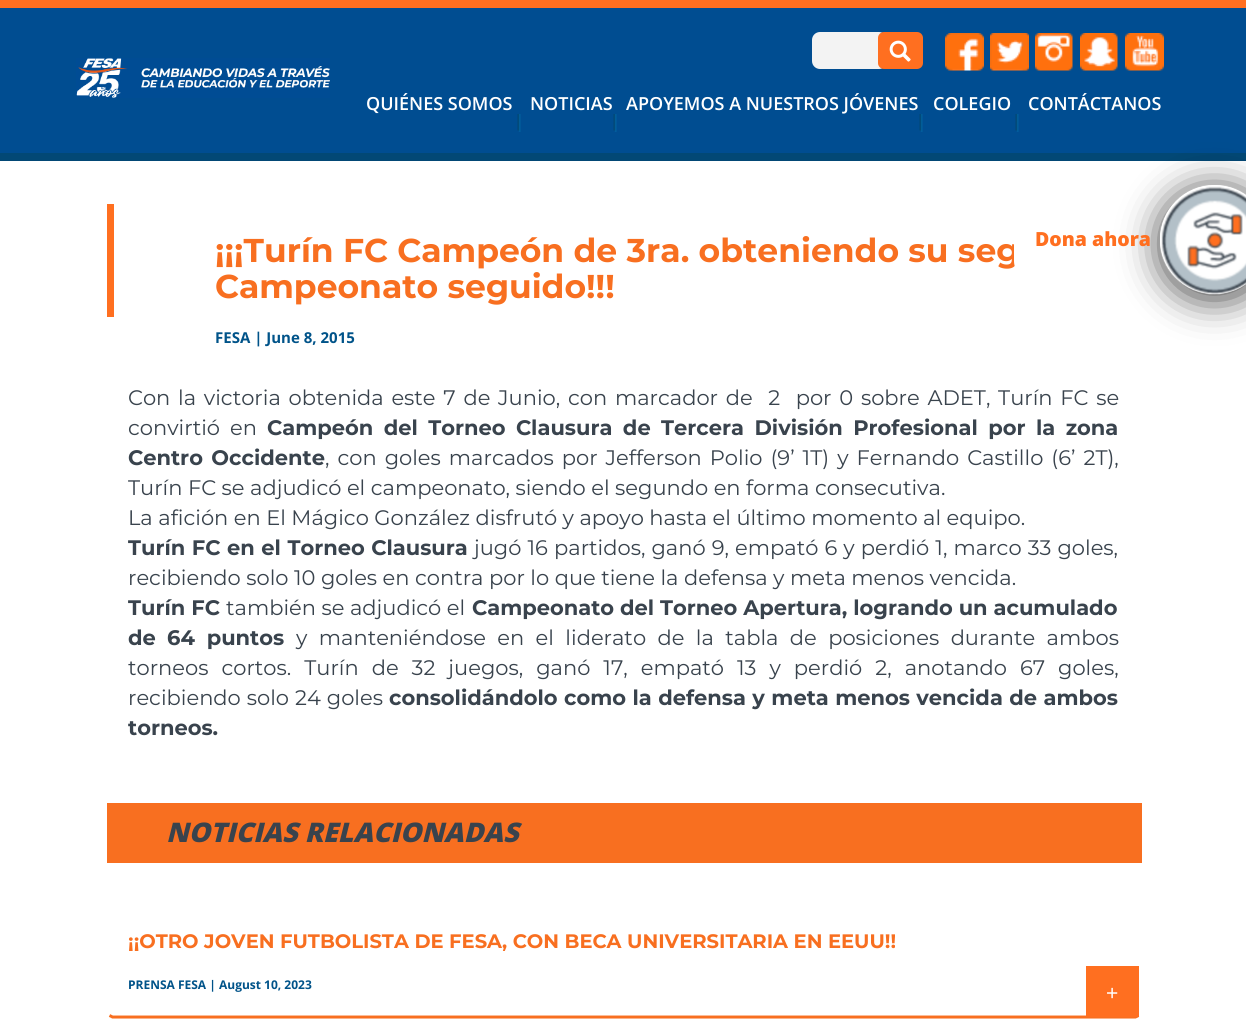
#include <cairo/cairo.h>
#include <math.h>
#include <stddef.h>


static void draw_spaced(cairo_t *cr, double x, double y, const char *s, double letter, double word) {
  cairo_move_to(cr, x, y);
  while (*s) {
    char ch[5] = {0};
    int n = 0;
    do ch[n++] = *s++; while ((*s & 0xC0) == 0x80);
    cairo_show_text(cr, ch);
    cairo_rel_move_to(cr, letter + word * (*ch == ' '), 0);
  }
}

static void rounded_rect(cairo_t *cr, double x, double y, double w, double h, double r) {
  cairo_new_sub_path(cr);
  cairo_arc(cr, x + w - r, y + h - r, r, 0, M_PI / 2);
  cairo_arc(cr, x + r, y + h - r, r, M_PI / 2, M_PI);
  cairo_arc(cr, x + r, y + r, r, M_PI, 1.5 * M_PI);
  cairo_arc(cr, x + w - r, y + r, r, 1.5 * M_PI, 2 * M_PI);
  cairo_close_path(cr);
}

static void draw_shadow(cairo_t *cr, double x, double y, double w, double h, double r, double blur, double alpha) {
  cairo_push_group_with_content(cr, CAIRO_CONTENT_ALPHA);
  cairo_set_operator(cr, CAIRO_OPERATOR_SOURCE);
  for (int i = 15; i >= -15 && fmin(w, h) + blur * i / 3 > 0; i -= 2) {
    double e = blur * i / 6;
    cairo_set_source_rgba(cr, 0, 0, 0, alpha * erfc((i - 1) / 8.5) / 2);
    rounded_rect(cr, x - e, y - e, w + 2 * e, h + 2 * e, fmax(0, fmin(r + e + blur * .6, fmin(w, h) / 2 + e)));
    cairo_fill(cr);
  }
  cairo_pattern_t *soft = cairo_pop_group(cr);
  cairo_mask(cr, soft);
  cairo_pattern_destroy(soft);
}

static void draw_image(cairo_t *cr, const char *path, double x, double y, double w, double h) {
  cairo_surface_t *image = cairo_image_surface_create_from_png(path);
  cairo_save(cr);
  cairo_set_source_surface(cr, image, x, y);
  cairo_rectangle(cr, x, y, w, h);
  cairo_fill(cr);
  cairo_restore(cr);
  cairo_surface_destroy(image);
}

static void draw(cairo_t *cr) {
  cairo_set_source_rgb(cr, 1, 1, 1);
  cairo_paint(cr);
  cairo_set_source_rgb(cr, 0, 77 / 255.0, 145 / 255.0);
  cairo_rectangle(cr, 0, 8, 1246, 145);
  cairo_fill(cr);
  cairo_set_source_rgb(cr, 1, 111 / 255.0, 32 / 255.0);
  cairo_rectangle(cr, 0, 0, 1246, 8);
  cairo_fill(cr);
  cairo_set_source_rgb(cr, 2 / 255.0, 72 / 255.0, 117 / 255.0);
  cairo_rectangle(cr, 0, 153, 1246, 8);
  cairo_fill(cr);
  cairo_set_source_rgb(cr, 243 / 255.0, 243 / 255.0, 243 / 255.0);
  rounded_rect(cr, 812, 32, 75, 37, 8);
  cairo_fill(cr);
  cairo_set_source_rgb(cr, 1, 111 / 255.0, 32 / 255.0);
  rounded_rect(cr, 878, 32, 45, 37, 6);
  cairo_fill(cr);
  draw_image(cr, "images/1.png", 889, 40, 22, 22);
  draw_image(cr, "images/2.png", 945, 33, 39, 38);
  draw_image(cr, "images/3.png", 990, 33, 39, 38);
  draw_image(cr, "images/4.png", 1035, 33, 38, 38);
  draw_image(cr, "images/5.png", 1080, 33, 38, 38);
  draw_image(cr, "images/6.png", 1125, 33, 39, 38);
  draw_image(cr, "images/7.png", 76, 58, 254, 40);
  draw_image(cr, "images/8.png", 517, 114, 4, 18);
  draw_image(cr, "images/8.png", 613, 114, 4, 18);
  draw_image(cr, "images/8.png", 919, 114, 4, 18);
  draw_image(cr, "images/8.png", 1015, 114, 4, 18);
  cairo_rectangle(cr, 107, 204, 7, 113);
  cairo_fill(cr);
  cairo_set_source_rgb(cr, 248 / 255.0, 111 / 255.0, 32 / 255.0);
  cairo_rectangle(cr, 107, 803, 1035, 60);
  cairo_fill(cr);
  cairo_new_path(cr);
  cairo_move_to(cr, 1138.5, 1015.5);
  cairo_line_to(cr, 1135.5, 1017);
  cairo_line_to(cr, 112.5, 1017);
  cairo_line_to(cr, 109.5, 1015.5);
  cairo_set_line_width(cr, 3);
  cairo_stroke(cr);
  cairo_set_source_rgb(cr, 1, 111 / 255.0, 32 / 255.0);
  cairo_rectangle(cr, 1086, 966, 53, 51);
  cairo_fill(cr);
  cairo_select_font_face(cr, "Open Sans SemiBold", CAIRO_FONT_SLANT_NORMAL, CAIRO_FONT_WEIGHT_NORMAL);
  cairo_set_font_size(cr, 18);
  cairo_set_source_rgb(cr, 1, 1, 1);
  cairo_move_to(cr, 366, 110);
  cairo_show_text(cr, "QUIÉNES SOMOS");
  cairo_move_to(cr, 530, 110);
  cairo_show_text(cr, "NOTICIAS");
  cairo_move_to(cr, 626, 110);
  cairo_show_text(cr, "APOYEMOS A NUESTROS JÓVENES");
  cairo_move_to(cr, 933, 110);
  cairo_show_text(cr, "COLEGIO");
  cairo_move_to(cr, 1028, 110);
  cairo_show_text(cr, "CONTÁCTANOS");
  cairo_select_font_face(cr, "Montserrat", CAIRO_FONT_SLANT_NORMAL, CAIRO_FONT_WEIGHT_BOLD);
  cairo_set_font_size(cr, 33);
  cairo_set_source_rgb(cr, 248 / 255.0, 111 / 255.0, 32 / 255.0);
  cairo_move_to(cr, 215, 262);
  cairo_show_text(cr, "¡¡¡Turín FC Campeón de 3ra. obteniendo su seg");
  cairo_set_source_rgb(cr, 1, 1, 1);
  rounded_rect(cr, 1014, 204, 183, 75, 18);
  cairo_fill(cr);
  cairo_save(cr);
  cairo_set_fill_rule(cr, CAIRO_FILL_RULE_EVEN_ODD);
  cairo_new_path(cr);
  cairo_move_to(cr, 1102, 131);
  cairo_line_to(cr, 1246, 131);
  cairo_line_to(cr, 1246, 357);
  cairo_line_to(cr, 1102, 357);
  cairo_close_path(cr);
  cairo_move_to(cr, 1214.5, 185);
  cairo_curve_to(cr, 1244.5, 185, 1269, 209.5, 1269, 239.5);
  cairo_curve_to(cr, 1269, 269.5, 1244.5, 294, 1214.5, 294);
  cairo_curve_to(cr, 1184.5, 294, 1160, 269.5, 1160, 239.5);
  cairo_curve_to(cr, 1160, 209.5, 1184.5, 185, 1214.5, 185);
  cairo_close_path(cr);
  cairo_clip(cr);
  cairo_set_source_rgb(cr, 0, 0, 0);
  draw_shadow(cr, 1160, 189, 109, 110, 54.5, 19, 0.75);
  cairo_restore(cr);
  draw_image(cr, "images/9.png", 1160, 185, 86, 110);
  cairo_select_font_face(cr, "Open Sans ExtraBold", CAIRO_FONT_SLANT_NORMAL, CAIRO_FONT_WEIGHT_NORMAL);
  cairo_set_font_size(cr, 19.5);
  cairo_set_source_rgb(cr, 1, 111 / 255.0, 32 / 255.0);
  cairo_move_to(cr, 1035, 246);
  cairo_show_text(cr, "Dona ahora");
  cairo_select_font_face(cr, "Montserrat", CAIRO_FONT_SLANT_NORMAL, CAIRO_FONT_WEIGHT_BOLD);
  cairo_set_font_size(cr, 33);
  cairo_set_source_rgb(cr, 248 / 255.0, 111 / 255.0, 32 / 255.0);
  cairo_move_to(cr, 215, 298);
  cairo_show_text(cr, "Campeonato seguido!!!");
  cairo_select_font_face(cr, "Open Sans", CAIRO_FONT_SLANT_NORMAL, CAIRO_FONT_WEIGHT_BOLD);
  cairo_set_font_size(cr, 15);
  cairo_set_source_rgb(cr, 0, 83 / 255.0, 137 / 255.0);
  cairo_move_to(cr, 215, 343);
  cairo_show_text(cr, "FESA | June 8, 2015");
  cairo_select_font_face(cr, "Montserrat", CAIRO_FONT_SLANT_NORMAL, CAIRO_FONT_WEIGHT_NORMAL);
  cairo_set_font_size(cr, 21);
  cairo_set_source_rgb(cr, 57 / 255.0, 67 / 255.0, 77 / 255.0);
  draw_spaced(cr, 128, 405, "Con la victoria obtenida este 7 de Junio, con marcador de  2  por 0 sobre ADET, Turín FC se", 0, 2.25);
  draw_spaced(cr, 128, 435, "convirtió en", 0, 4.5);
  cairo_select_font_face(cr, "Montserrat", CAIRO_FONT_SLANT_NORMAL, CAIRO_FONT_WEIGHT_BOLD);
  draw_spaced(cr, 267, 435, "Campeón del Torneo Clausura de Tercera División Profesional por la zona", 0, 4.5);
  draw_spaced(cr, 128, 465, "Centro Occidente", 0, 2.5);
  cairo_select_font_face(cr, "Montserrat", CAIRO_FONT_SLANT_NORMAL, CAIRO_FONT_WEIGHT_NORMAL);
  draw_spaced(cr, 325, 465, ", con goles marcados por Jefferson Polio (9’ 1T) y Fernando Castillo (6’ 2T),", 0, 2.5);
  cairo_move_to(cr, 128, 495);
  cairo_show_text(cr, "Turín FC se adjudicó el campeonato, siendo el segundo en forma consecutiva.");
  cairo_move_to(cr, 128, 525);
  cairo_show_text(cr, "La afición en El Mágico González disfrutó y apoyo hasta el último momento al equipo.");
  cairo_select_font_face(cr, "Montserrat", CAIRO_FONT_SLANT_NORMAL, CAIRO_FONT_WEIGHT_BOLD);
  draw_spaced(cr, 128, 555, "Turín FC en el Torneo Clausura", 0, 0.6);
  cairo_select_font_face(cr, "Montserrat", CAIRO_FONT_SLANT_NORMAL, CAIRO_FONT_WEIGHT_NORMAL);
  draw_spaced(cr, 474, 555, "jugó 16 partidos, ganó 9, empató 6 y perdió 1, marco 33 goles,", 0, 0.6);
  cairo_move_to(cr, 128, 585);
  cairo_show_text(cr, "recibiendo solo 10 goles en contra por lo que tiene la defensa y meta menos vencida.");
  cairo_select_font_face(cr, "Montserrat", CAIRO_FONT_SLANT_NORMAL, CAIRO_FONT_WEIGHT_BOLD);
  cairo_move_to(cr, 128, 615);
  cairo_show_text(cr, "Turín FC");
  cairo_select_font_face(cr, "Montserrat", CAIRO_FONT_SLANT_NORMAL, CAIRO_FONT_WEIGHT_NORMAL);
  cairo_move_to(cr, 226, 615);
  cairo_show_text(cr, "también se adjudicó el");
  cairo_select_font_face(cr, "Montserrat", CAIRO_FONT_SLANT_NORMAL, CAIRO_FONT_WEIGHT_BOLD);
  cairo_move_to(cr, 472, 615);
  cairo_show_text(cr, "Campeonato del Torneo Apertura, logrando un acumulado");
  cairo_move_to(cr, 128, 645);
  cairo_show_text(cr, "de");
  draw_spaced(cr, 167, 645, "64 puntos", 0, 5.9);
  cairo_select_font_face(cr, "Montserrat", CAIRO_FONT_SLANT_NORMAL, CAIRO_FONT_WEIGHT_NORMAL);
  draw_spaced(cr, 296, 645, "y manteniéndose en el liderato de la tabla de posiciones durante ambos", 0, 5.9);
  draw_spaced(cr, 128, 675, "torneos cortos. Turín de 32 juegos, ganó 17, empató 13 y perdió 2, anotando 67 goles,", 0, 7.5);
  draw_spaced(cr, 128, 705, "recibiendo solo 24 goles", 0, 0.5);
  cairo_select_font_face(cr, "Montserrat", CAIRO_FONT_SLANT_NORMAL, CAIRO_FONT_WEIGHT_BOLD);
  draw_spaced(cr, 389, 705, "consolidándolo como la defensa y meta menos vencida de ambos", 0, 0.5);
  cairo_move_to(cr, 128, 735);
  cairo_show_text(cr, "torneos.");
  cairo_select_font_face(cr, "Open Sans ExtraBold", CAIRO_FONT_SLANT_ITALIC, CAIRO_FONT_WEIGHT_NORMAL);
  cairo_set_font_size(cr, 27);
  cairo_move_to(cr, 166, 842);
  cairo_show_text(cr, "NOTICIAS RELACIONADAS");
  cairo_select_font_face(cr, "Montserrat", CAIRO_FONT_SLANT_NORMAL, CAIRO_FONT_WEIGHT_BOLD);
  cairo_set_font_size(cr, 19.5);
  cairo_set_source_rgb(cr, 248 / 255.0, 111 / 255.0, 32 / 255.0);
  cairo_move_to(cr, 128, 948);
  cairo_show_text(cr, "¡¡OTRO JOVEN FUTBOLISTA DE FESA, CON BECA UNIVERSITARIA EN EEUU!!");
  cairo_select_font_face(cr, "Open Sans", CAIRO_FONT_SLANT_NORMAL, CAIRO_FONT_WEIGHT_BOLD);
  cairo_set_font_size(cr, 12);
  cairo_set_source_rgb(cr, 0, 83 / 255.0, 137 / 255.0);
  cairo_move_to(cr, 128, 989);
  cairo_show_text(cr, "PRENSA FESA | August 10, 2023");
  cairo_select_font_face(cr, "Liberation Sans", CAIRO_FONT_SLANT_NORMAL, CAIRO_FONT_WEIGHT_NORMAL);
  cairo_set_font_size(cr, 21);
  cairo_set_source_rgb(cr, 1, 1, 1);
  cairo_move_to(cr, 1106, 1000);
  cairo_show_text(cr, "+");
}

int main(void) {
  cairo_surface_t *surface = cairo_image_surface_create(CAIRO_FORMAT_RGB24, 1246, 1027);
  cairo_t *cr = cairo_create(surface);
  cairo_font_options_t *options = cairo_font_options_create();
  cairo_font_options_set_hint_metrics(options, CAIRO_HINT_METRICS_OFF);
  cairo_font_options_set_hint_style(options, CAIRO_HINT_STYLE_NONE);
  cairo_set_font_options(cr, options);
  cairo_set_miter_limit(cr, 4);
  draw(cr);
  cairo_surface_write_to_png(surface, "out.png");
  cairo_font_options_destroy(options);
  cairo_destroy(cr);
  cairo_surface_destroy(surface);
  return 0;
}
